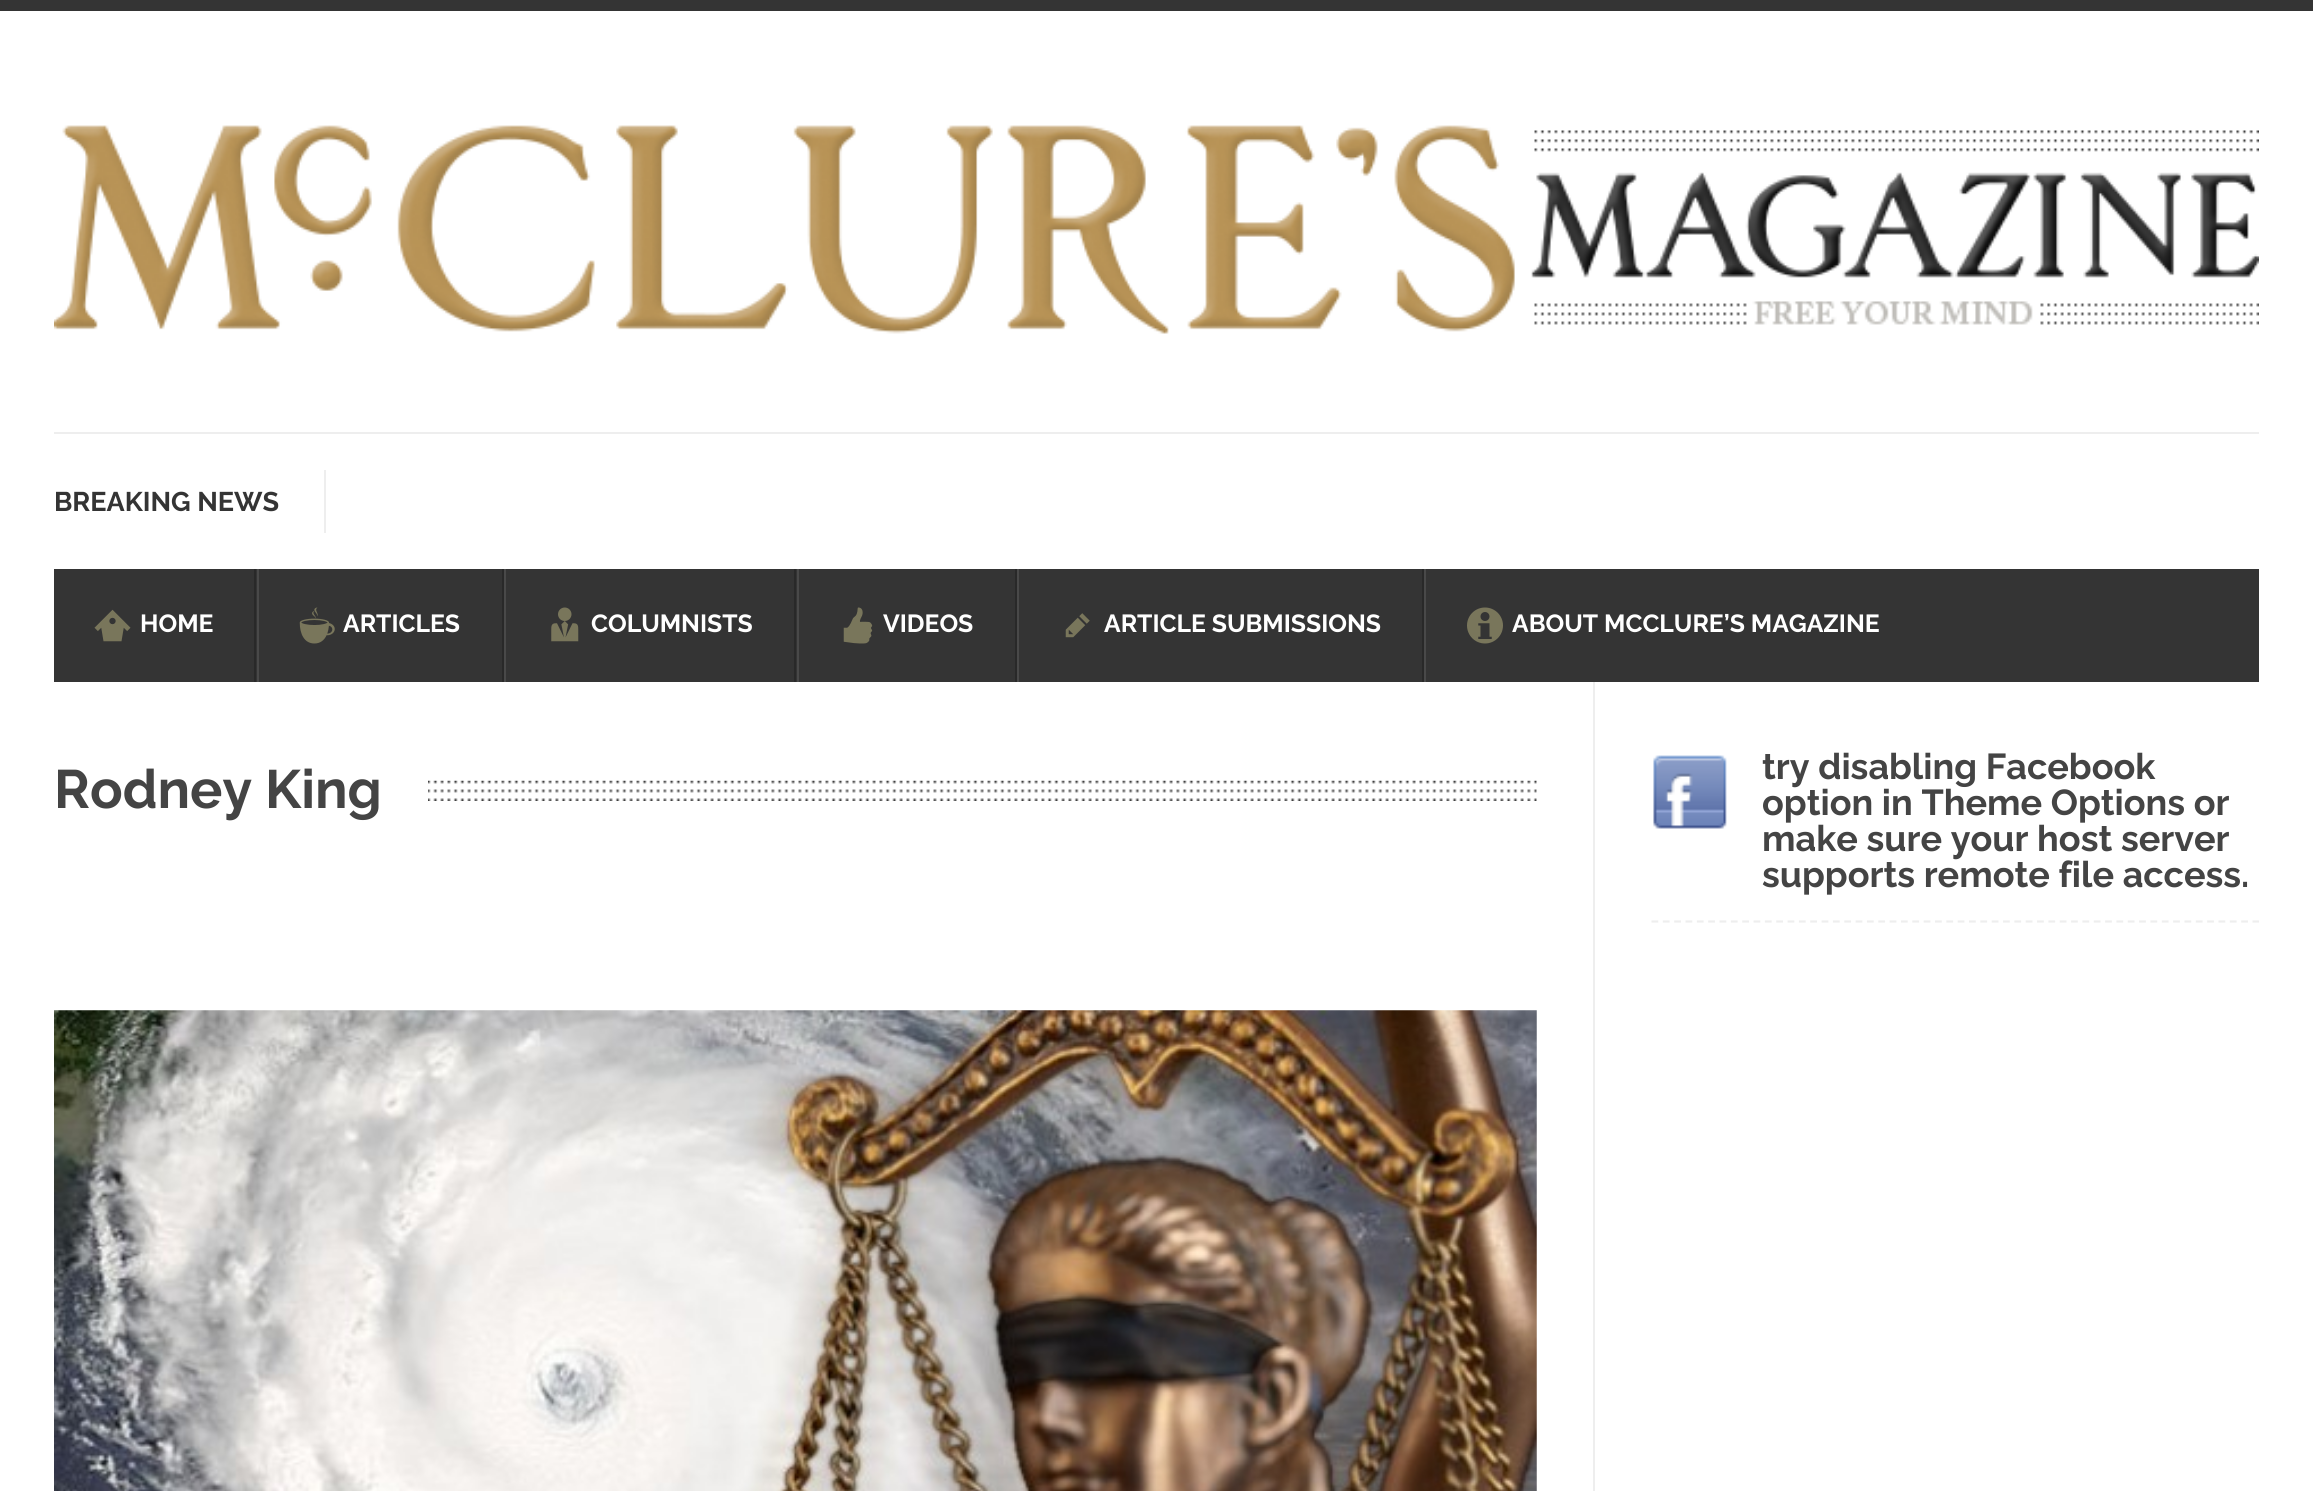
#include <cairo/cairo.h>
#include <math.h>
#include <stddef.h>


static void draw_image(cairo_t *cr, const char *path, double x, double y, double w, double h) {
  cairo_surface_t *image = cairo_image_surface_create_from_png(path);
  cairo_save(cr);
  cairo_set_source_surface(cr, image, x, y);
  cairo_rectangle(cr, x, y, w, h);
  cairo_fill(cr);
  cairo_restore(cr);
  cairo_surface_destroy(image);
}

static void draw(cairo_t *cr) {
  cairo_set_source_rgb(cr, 1, 1, 1);
  cairo_paint(cr);
  cairo_set_source_rgb(cr, 52 / 255.0, 52 / 255.0, 52 / 255.0);
  cairo_rectangle(cr, 0, 0, 2313, 11);
  cairo_fill(cr);
  draw_image(cr, "images/1.png", 54, 125, 2205, 209);
  cairo_set_source_rgb(cr, 238 / 255.0, 238 / 255.0, 238 / 255.0);
  cairo_rectangle(cr, 54, 432, 2205, 2);
  cairo_fill(cr);
  cairo_rectangle(cr, 324, 470, 2, 63);
  cairo_fill(cr);
  cairo_set_source_rgb(cr, 52 / 255.0, 52 / 255.0, 52 / 255.0);
  cairo_rectangle(cr, 54, 569, 2205, 113);
  cairo_fill(cr);
  cairo_set_source_rgb(cr, 41 / 255.0, 41 / 255.0, 41 / 255.0);
  cairo_rectangle(cr, 254, 569, 2, 113);
  cairo_fill(cr);
  draw_image(cr, "images/2.png", 94, 609, 37, 33);
  cairo_rectangle(cr, 502, 569, 2, 113);
  cairo_fill(cr);
  cairo_set_source_rgb(cr, 73 / 255.0, 73 / 255.0, 73 / 255.0);
  cairo_rectangle(cr, 257, 569, 2, 113);
  cairo_fill(cr);
  draw_image(cr, "images/3.png", 299, 607, 36, 37);
  cairo_set_source_rgb(cr, 41 / 255.0, 41 / 255.0, 41 / 255.0);
  cairo_rectangle(cr, 794, 569, 2, 113);
  cairo_fill(cr);
  cairo_set_source_rgb(cr, 73 / 255.0, 73 / 255.0, 73 / 255.0);
  cairo_rectangle(cr, 504, 569, 2, 113);
  cairo_fill(cr);
  draw_image(cr, "images/4.png", 551, 607, 28, 35);
  cairo_set_source_rgb(cr, 41 / 255.0, 41 / 255.0, 41 / 255.0);
  cairo_rectangle(cr, 1015, 569, 2, 113);
  cairo_fill(cr);
  cairo_set_source_rgb(cr, 73 / 255.0, 73 / 255.0, 73 / 255.0);
  cairo_rectangle(cr, 797, 569, 2, 113);
  cairo_fill(cr);
  draw_image(cr, "images/5.png", 843, 607, 30, 37);
  cairo_set_source_rgb(cr, 41 / 255.0, 41 / 255.0, 41 / 255.0);
  cairo_rectangle(cr, 1422, 569, 2, 113);
  cairo_fill(cr);
  cairo_set_source_rgb(cr, 73 / 255.0, 73 / 255.0, 73 / 255.0);
  cairo_rectangle(cr, 1017, 569, 2, 113);
  cairo_fill(cr);
  draw_image(cr, "images/6.png", 1065, 613, 25, 25);
  cairo_rectangle(cr, 1424, 569, 2, 113);
  cairo_fill(cr);
  draw_image(cr, "images/7.png", 1467, 607, 36, 37);
  cairo_set_source_rgb(cr, 238 / 255.0, 238 / 255.0, 238 / 255.0);
  cairo_rectangle(cr, 1593, 682, 2, 809);
  cairo_fill(cr);
  draw_image(cr, "images/8.png", 428, 780, 1109, 21);
  draw_image(cr, "images/9.png", 54, 1010, 1483, 481);
  cairo_new_path(cr);
  cairo_move_to(cr, 1651.5, 921.5);
  cairo_line_to(cr, 2259, 921.5);
  cairo_set_line_width(cr, 2.2);
  cairo_set_dash(cr, (double[]){6.75, 4.59}, 2, 0);
  cairo_stroke(cr);
  draw_image(cr, "images/10.png", 1653, 755, 74, 74);
  cairo_select_font_face(cr, "Raleway", CAIRO_FONT_SLANT_NORMAL, CAIRO_FONT_WEIGHT_BOLD);
  cairo_set_font_size(cr, 27);
  cairo_set_source_rgb(cr, 52 / 255.0, 52 / 255.0, 52 / 255.0);
  cairo_move_to(cr, 54, 511);
  cairo_show_text(cr, "BREAKING NEWS");
  cairo_set_font_size(cr, 24.75);
  cairo_set_source_rgb(cr, 1, 1, 1);
  cairo_move_to(cr, 140, 632);
  cairo_show_text(cr, "HOME");
  cairo_move_to(cr, 343, 632);
  cairo_show_text(cr, "ARTICLES");
  cairo_move_to(cr, 591, 632);
  cairo_show_text(cr, "COLUMNISTS");
  cairo_move_to(cr, 883, 632);
  cairo_show_text(cr, "VIDEOS");
  cairo_move_to(cr, 1104, 632);
  cairo_show_text(cr, "ARTICLE SUBMISSIONS");
  cairo_move_to(cr, 1512, 632);
  cairo_show_text(cr, "ABOUT MCCLURE’S MAGAZINE");
  cairo_set_font_size(cr, 54);
  cairo_set_source_rgb(cr, 68 / 255.0, 68 / 255.0, 68 / 255.0);
  cairo_move_to(cr, 54, 808);
  cairo_show_text(cr, "Rodney King");
  cairo_set_font_size(cr, 36);
  cairo_move_to(cr, 1762, 779);
  cairo_show_text(cr, "try disabling Facebook");
  cairo_move_to(cr, 1762, 815);
  cairo_show_text(cr, "option in Theme Options or");
  cairo_move_to(cr, 1762, 851);
  cairo_show_text(cr, "make sure your host server");
  cairo_move_to(cr, 1762, 887);
  cairo_show_text(cr, "supports remote file access.");
}

int main(void) {
  cairo_surface_t *surface = cairo_image_surface_create(CAIRO_FORMAT_RGB24, 2313, 1491);
  cairo_t *cr = cairo_create(surface);
  cairo_font_options_t *options = cairo_font_options_create();
  cairo_font_options_set_hint_metrics(options, CAIRO_HINT_METRICS_OFF);
  cairo_font_options_set_hint_style(options, CAIRO_HINT_STYLE_NONE);
  cairo_set_font_options(cr, options);
  cairo_set_miter_limit(cr, 4);
  draw(cr);
  cairo_surface_write_to_png(surface, "out.png");
  cairo_font_options_destroy(options);
  cairo_destroy(cr);
  cairo_surface_destroy(surface);
  return 0;
}
